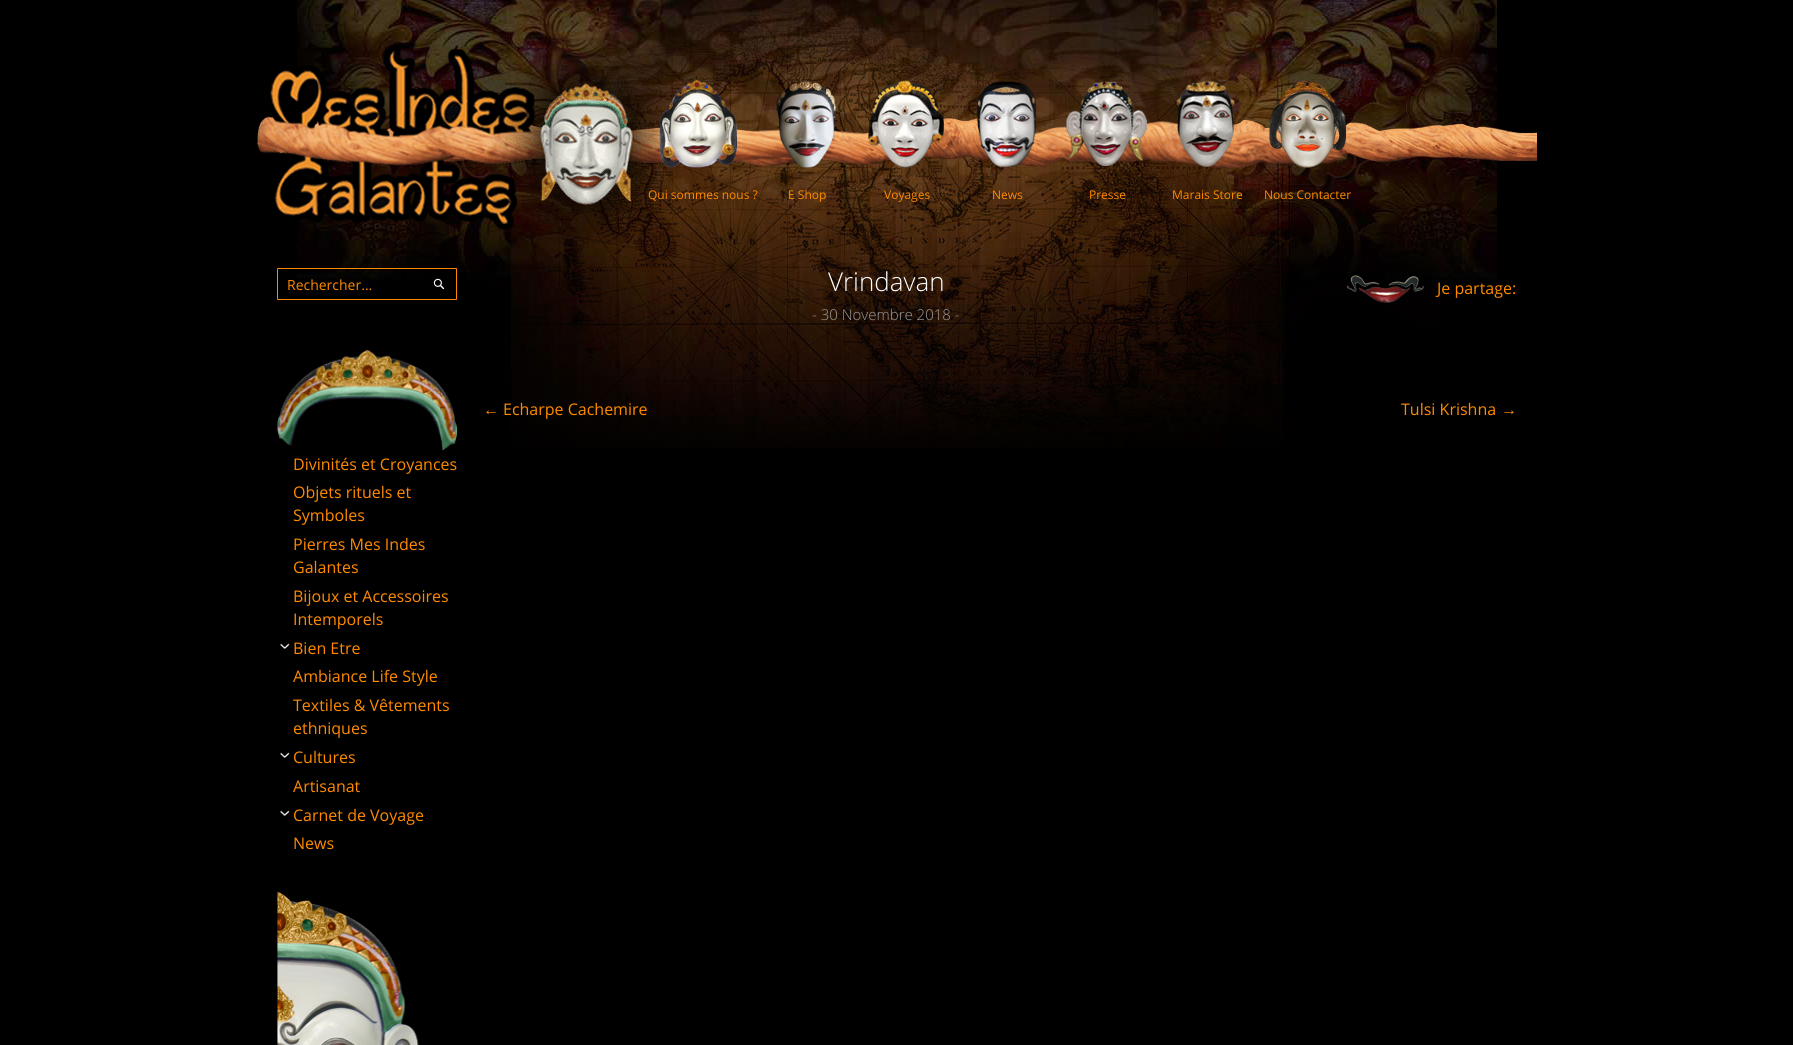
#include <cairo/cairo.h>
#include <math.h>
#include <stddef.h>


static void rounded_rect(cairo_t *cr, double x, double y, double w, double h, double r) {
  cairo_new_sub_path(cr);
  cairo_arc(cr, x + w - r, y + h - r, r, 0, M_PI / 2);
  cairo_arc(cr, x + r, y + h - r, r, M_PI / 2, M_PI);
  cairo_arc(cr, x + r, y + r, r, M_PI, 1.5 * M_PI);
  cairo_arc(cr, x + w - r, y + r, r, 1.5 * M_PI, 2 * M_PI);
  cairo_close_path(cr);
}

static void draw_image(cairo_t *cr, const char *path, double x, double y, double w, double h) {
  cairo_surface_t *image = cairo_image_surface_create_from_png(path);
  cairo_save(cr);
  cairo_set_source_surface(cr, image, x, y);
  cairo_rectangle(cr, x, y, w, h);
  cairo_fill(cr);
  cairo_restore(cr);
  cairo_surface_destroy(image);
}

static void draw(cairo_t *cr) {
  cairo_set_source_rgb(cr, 0, 0, 0);
  cairo_paint(cr);
  draw_image(cr, "images/1.png", 297, 0, 1200, 448);
  draw_image(cr, "images/2.png", 257, 39, 1280, 205);
  draw_image(cr, "images/3.png", 659, 80, 78, 88);
  draw_image(cr, "images/4.png", 776, 81, 60, 87);
  draw_image(cr, "images/5.png", 868, 80, 76, 88);
  draw_image(cr, "images/6.png", 977, 81, 59, 86);
  draw_image(cr, "images/7.png", 1065, 81, 83, 86);
  draw_image(cr, "images/8.png", 1175, 81, 61, 86);
  draw_image(cr, "images/9.png", 1269, 80, 77, 88);
  rounded_rect(cr, 277.5, 268.5, 179, 31, 0.5);
  cairo_set_source_rgb(cr, 1, 138 / 255.0, 0);
  cairo_set_line_width(cr, 1);
  cairo_stroke(cr);
  draw_image(cr, "images/10.png", 433, 278, 12, 12);
  draw_image(cr, "images/11.png", 277, 350, 181, 101);
  draw_image(cr, "images/12.png", 280, 643, 10, 6);
  draw_image(cr, "images/12.png", 280, 752, 10, 6);
  draw_image(cr, "images/12.png", 280, 810, 10, 6);
  draw_image(cr, "images/13.png", 277, 891, 142, 154);
  draw_image(cr, "images/14.png", 1347, 275, 77, 28);
  cairo_select_font_face(cr, "Open Sans", CAIRO_FONT_SLANT_NORMAL, CAIRO_FONT_WEIGHT_NORMAL);
  cairo_set_font_size(cr, 12);
  cairo_move_to(cr, 648, 199);
  cairo_show_text(cr, "Qui sommes nous ?");
  cairo_move_to(cr, 788, 199);
  cairo_show_text(cr, "E Shop");
  cairo_move_to(cr, 884, 199);
  cairo_show_text(cr, "Voyages");
  cairo_move_to(cr, 992, 199);
  cairo_show_text(cr, "News");
  cairo_move_to(cr, 1089, 199);
  cairo_show_text(cr, "Presse");
  cairo_move_to(cr, 1172, 199);
  cairo_show_text(cr, "Marais Store");
  cairo_move_to(cr, 1264, 199);
  cairo_show_text(cr, "Nous Contacter");
  cairo_set_font_size(cr, 14);
  cairo_move_to(cr, 287, 290);
  cairo_show_text(cr, "Rechercher...");
  cairo_set_font_size(cr, 16);
  cairo_move_to(cr, 293, 470);
  cairo_show_text(cr, "Divinités et Croyances");
  cairo_move_to(cr, 293, 498);
  cairo_show_text(cr, "Objets rituels et");
  cairo_move_to(cr, 293, 521);
  cairo_show_text(cr, "Symboles");
  cairo_move_to(cr, 293, 550);
  cairo_show_text(cr, "Pierres Mes Indes");
  cairo_move_to(cr, 293, 573);
  cairo_show_text(cr, "Galantes");
  cairo_move_to(cr, 293, 602);
  cairo_show_text(cr, "Bijoux et Accessoires");
  cairo_move_to(cr, 293, 625);
  cairo_show_text(cr, "Intemporels");
  cairo_move_to(cr, 293, 654);
  cairo_show_text(cr, "Bien Etre");
  cairo_move_to(cr, 293, 682);
  cairo_show_text(cr, "Ambiance Life Style");
  cairo_move_to(cr, 293, 711);
  cairo_show_text(cr, "Textiles & Vêtements");
  cairo_move_to(cr, 293, 734);
  cairo_show_text(cr, "ethniques");
  cairo_move_to(cr, 293, 763);
  cairo_show_text(cr, "Cultures");
  cairo_move_to(cr, 293, 792);
  cairo_show_text(cr, "Artisanat");
  cairo_move_to(cr, 293, 821);
  cairo_show_text(cr, "Carnet de Voyage");
  cairo_move_to(cr, 293, 849);
  cairo_show_text(cr, "News");
  cairo_select_font_face(cr, "Open Sans Light", CAIRO_FONT_SLANT_NORMAL, CAIRO_FONT_WEIGHT_NORMAL);
  cairo_set_font_size(cr, 26);
  cairo_set_source_rgb(cr, 1, 1, 1);
  cairo_move_to(cr, 828, 291);
  cairo_show_text(cr, "Vrindavan");
  cairo_set_font_size(cr, 15);
  cairo_set_source_rgb(cr, 157 / 255.0, 153 / 255.0, 150 / 255.0);
  cairo_move_to(cr, 812, 320);
  cairo_show_text(cr, "- 30 Novembre 2018 -");
  cairo_select_font_face(cr, "Open Sans", CAIRO_FONT_SLANT_NORMAL, CAIRO_FONT_WEIGHT_NORMAL);
  cairo_set_font_size(cr, 16);
  cairo_set_source_rgb(cr, 1, 138 / 255.0, 0);
  cairo_move_to(cr, 1437, 294);
  cairo_show_text(cr, "Je partage:");
  cairo_select_font_face(cr, "Liberation Sans", CAIRO_FONT_SLANT_NORMAL, CAIRO_FONT_WEIGHT_NORMAL);
  cairo_move_to(cr, 483, 415);
  cairo_show_text(cr, "←");
  cairo_select_font_face(cr, "Open Sans", CAIRO_FONT_SLANT_NORMAL, CAIRO_FONT_WEIGHT_NORMAL);
  cairo_move_to(cr, 503, 415);
  cairo_show_text(cr, "Echarpe Cachemire");
  cairo_move_to(cr, 1401, 415);
  cairo_show_text(cr, "Tulsi Krishna");
  cairo_select_font_face(cr, "Liberation Sans", CAIRO_FONT_SLANT_NORMAL, CAIRO_FONT_WEIGHT_NORMAL);
  cairo_move_to(cr, 1501, 415);
  cairo_show_text(cr, "→");
}

int main(void) {
  cairo_surface_t *surface = cairo_image_surface_create(CAIRO_FORMAT_RGB24, 1793, 1045);
  cairo_t *cr = cairo_create(surface);
  cairo_font_options_t *options = cairo_font_options_create();
  cairo_font_options_set_hint_metrics(options, CAIRO_HINT_METRICS_OFF);
  cairo_font_options_set_hint_style(options, CAIRO_HINT_STYLE_NONE);
  cairo_set_font_options(cr, options);
  cairo_set_miter_limit(cr, 4);
  draw(cr);
  cairo_surface_write_to_png(surface, "out.png");
  cairo_font_options_destroy(options);
  cairo_destroy(cr);
  cairo_surface_destroy(surface);
  return 0;
}
